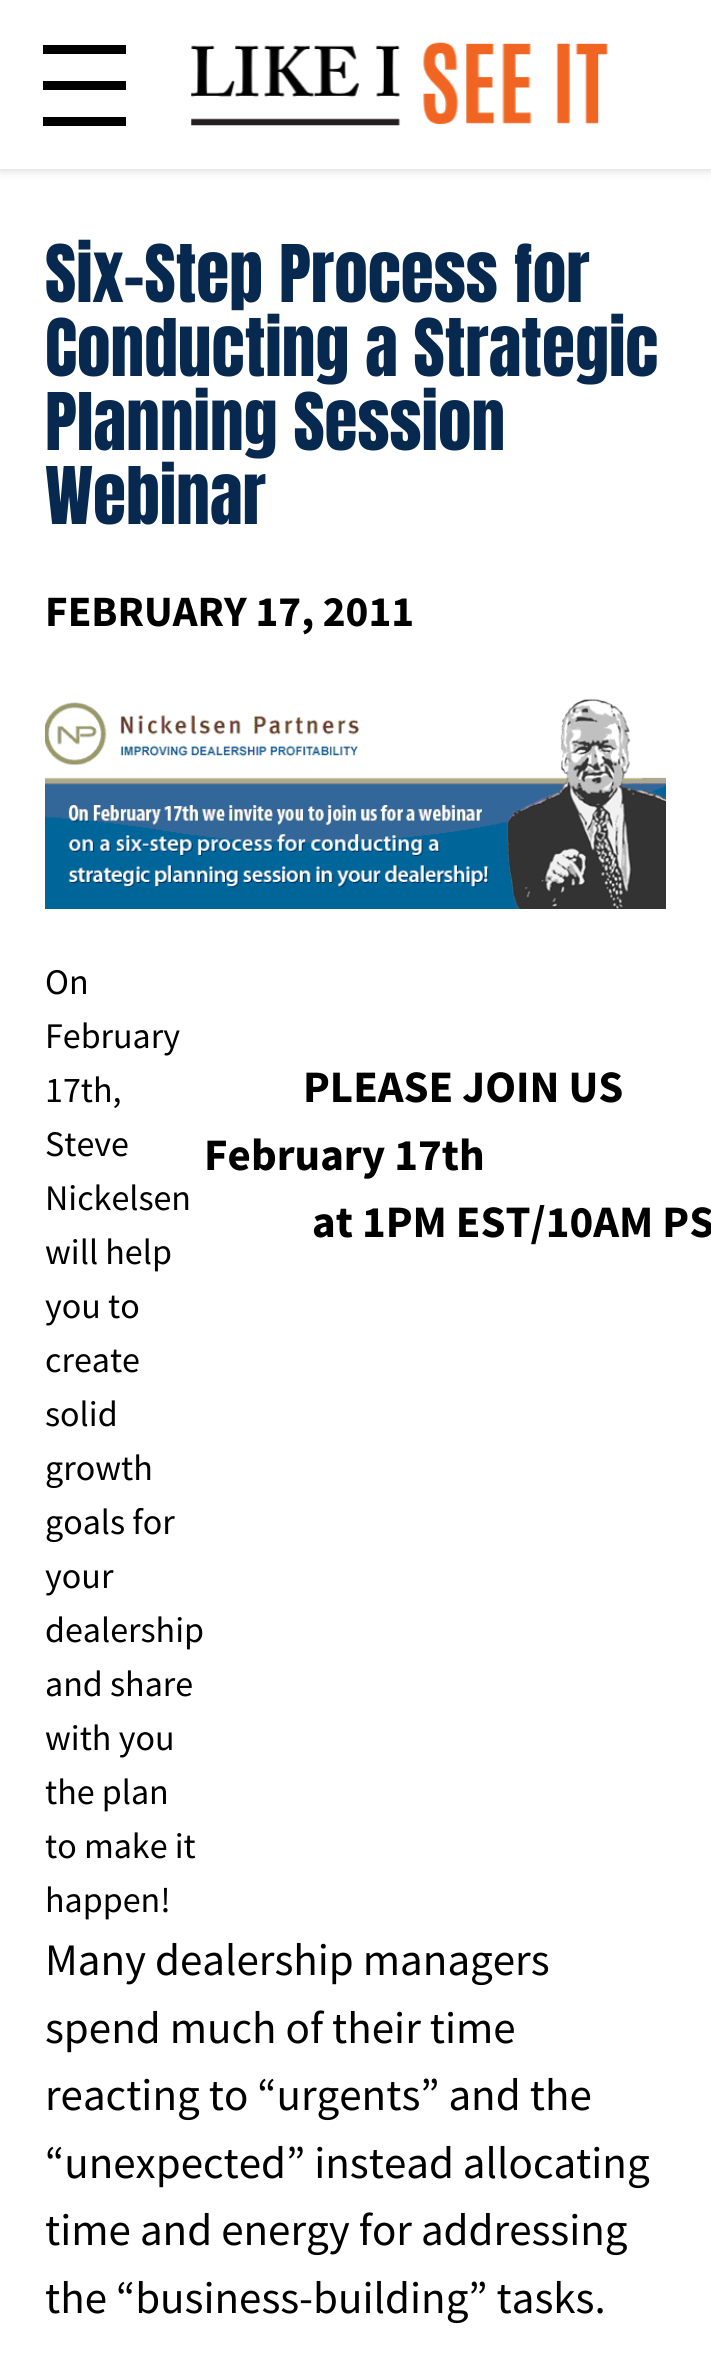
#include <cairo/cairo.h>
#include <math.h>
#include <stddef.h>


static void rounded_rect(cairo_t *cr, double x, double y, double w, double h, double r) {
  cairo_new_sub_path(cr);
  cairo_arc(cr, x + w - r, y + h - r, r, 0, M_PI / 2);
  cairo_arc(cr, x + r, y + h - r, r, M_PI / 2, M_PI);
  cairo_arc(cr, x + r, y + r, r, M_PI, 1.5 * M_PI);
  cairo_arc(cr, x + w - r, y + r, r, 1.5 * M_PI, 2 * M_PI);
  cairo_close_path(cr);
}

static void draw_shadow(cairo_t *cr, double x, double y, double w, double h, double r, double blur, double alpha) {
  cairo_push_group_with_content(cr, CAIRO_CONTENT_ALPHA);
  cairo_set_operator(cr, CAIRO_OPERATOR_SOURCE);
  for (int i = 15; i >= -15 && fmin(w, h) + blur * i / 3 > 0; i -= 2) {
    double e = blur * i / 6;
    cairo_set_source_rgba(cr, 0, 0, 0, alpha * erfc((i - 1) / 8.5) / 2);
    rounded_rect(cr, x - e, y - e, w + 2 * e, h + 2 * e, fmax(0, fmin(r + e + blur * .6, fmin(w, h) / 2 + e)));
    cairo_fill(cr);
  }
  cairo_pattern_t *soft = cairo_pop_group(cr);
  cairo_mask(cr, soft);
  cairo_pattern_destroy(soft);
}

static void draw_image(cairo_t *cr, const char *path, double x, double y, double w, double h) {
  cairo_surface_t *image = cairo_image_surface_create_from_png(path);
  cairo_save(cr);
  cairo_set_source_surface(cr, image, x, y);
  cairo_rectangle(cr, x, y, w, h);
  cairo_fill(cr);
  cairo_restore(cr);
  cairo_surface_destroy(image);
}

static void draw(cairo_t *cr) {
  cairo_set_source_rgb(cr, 1, 1, 1);
  cairo_paint(cr);
  cairo_set_source_rgb(cr, 0, 0, 0);
  draw_shadow(cr, 0, 0, 711, 169, 0, 5.5, 0.2);
  cairo_set_source_rgb(cr, 1, 1, 1);
  cairo_rectangle(cr, 0, 0, 711, 169);
  cairo_fill(cr);
  cairo_set_source_rgb(cr, 0, 0, 0);
  cairo_rectangle(cr, 43, 45, 83, 9);
  cairo_fill(cr);
  cairo_rectangle(cr, 43, 81, 83, 9);
  cairo_fill(cr);
  cairo_rectangle(cr, 43, 117, 83, 9);
  cairo_fill(cr);
  draw_image(cr, "images/1.png", 191, 42, 417, 84);
  draw_image(cr, "images/2.png", 45, 698, 621, 211);
  cairo_select_font_face(cr, "Anton", CAIRO_FONT_SLANT_NORMAL, CAIRO_FONT_WEIGHT_NORMAL);
  cairo_set_font_size(cr, 67.5);
  cairo_set_source_rgb(cr, 8 / 255.0, 41 / 255.0, 79 / 255.0);
  cairo_move_to(cr, 45, 302);
  cairo_show_text(cr, "Six-Step Process for");
  cairo_move_to(cr, 45, 376);
  cairo_show_text(cr, "Conducting a Strategic");
  cairo_move_to(cr, 45, 450);
  cairo_show_text(cr, "Planning Session");
  cairo_move_to(cr, 45, 524);
  cairo_show_text(cr, "Webinar");
  cairo_select_font_face(cr, "Source Sans Pro", CAIRO_FONT_SLANT_NORMAL, CAIRO_FONT_WEIGHT_BOLD);
  cairo_set_font_size(cr, 43.25);
  cairo_set_source_rgb(cr, 0, 0, 0);
  cairo_move_to(cr, 45, 626);
  cairo_show_text(cr, "FEBRUARY 17, 2011");
  cairo_select_font_face(cr, "Source Sans Pro", CAIRO_FONT_SLANT_NORMAL, CAIRO_FONT_WEIGHT_NORMAL);
  cairo_set_font_size(cr, 36);
  cairo_move_to(cr, 45, 994);
  cairo_show_text(cr, "On");
  cairo_move_to(cr, 45, 1048);
  cairo_show_text(cr, "February");
  cairo_move_to(cr, 45, 1102);
  cairo_show_text(cr, "17th,");
  cairo_move_to(cr, 45, 1156);
  cairo_show_text(cr, "Steve");
  cairo_move_to(cr, 45, 1210);
  cairo_show_text(cr, "Nickelsen");
  cairo_move_to(cr, 45, 1264);
  cairo_show_text(cr, "will help");
  cairo_move_to(cr, 45, 1318);
  cairo_show_text(cr, "you to");
  cairo_move_to(cr, 45, 1372);
  cairo_show_text(cr, "create");
  cairo_move_to(cr, 45, 1426);
  cairo_show_text(cr, "solid");
  cairo_move_to(cr, 45, 1480);
  cairo_show_text(cr, "growth");
  cairo_move_to(cr, 45, 1534);
  cairo_show_text(cr, "goals for");
  cairo_move_to(cr, 45, 1588);
  cairo_show_text(cr, "your");
  cairo_move_to(cr, 45, 1642);
  cairo_show_text(cr, "dealership");
  cairo_move_to(cr, 45, 1696);
  cairo_show_text(cr, "and share");
  cairo_move_to(cr, 45, 1750);
  cairo_show_text(cr, "with you");
  cairo_move_to(cr, 45, 1804);
  cairo_show_text(cr, "the plan");
  cairo_move_to(cr, 45, 1858);
  cairo_show_text(cr, "to make it");
  cairo_move_to(cr, 45, 1912);
  cairo_show_text(cr, "happen!");
  cairo_select_font_face(cr, "Source Sans Pro", CAIRO_FONT_SLANT_NORMAL, CAIRO_FONT_WEIGHT_BOLD);
  cairo_set_font_size(cr, 45);
  cairo_move_to(cr, 303, 1102);
  cairo_show_text(cr, "PLEASE JOIN US");
  cairo_move_to(cr, 204, 1170);
  cairo_show_text(cr, "February 17th");
  cairo_move_to(cr, 312, 1237);
  cairo_show_text(cr, "at 1PM EST/10AM PS");
  cairo_select_font_face(cr, "Source Sans Pro", CAIRO_FONT_SLANT_NORMAL, CAIRO_FONT_WEIGHT_NORMAL);
  cairo_move_to(cr, 45, 1975);
  cairo_show_text(cr, "Many dealership managers");
  cairo_move_to(cr, 45, 2043);
  cairo_show_text(cr, "spend much of their time");
  cairo_move_to(cr, 45, 2110);
  cairo_show_text(cr, "reacting to “urgents” and the");
  cairo_move_to(cr, 45, 2178);
  cairo_show_text(cr, "“unexpected” instead allocating");
  cairo_move_to(cr, 45, 2245);
  cairo_show_text(cr, "time and energy for addressing");
  cairo_move_to(cr, 45, 2313);
  cairo_show_text(cr, "the “business-building” tasks.");
}

int main(void) {
  cairo_surface_t *surface = cairo_image_surface_create(CAIRO_FORMAT_RGB24, 711, 2356);
  cairo_t *cr = cairo_create(surface);
  cairo_font_options_t *options = cairo_font_options_create();
  cairo_font_options_set_hint_metrics(options, CAIRO_HINT_METRICS_OFF);
  cairo_font_options_set_hint_style(options, CAIRO_HINT_STYLE_NONE);
  cairo_set_font_options(cr, options);
  cairo_set_miter_limit(cr, 4);
  draw(cr);
  cairo_surface_write_to_png(surface, "out.png");
  cairo_font_options_destroy(options);
  cairo_destroy(cr);
  cairo_surface_destroy(surface);
  return 0;
}
